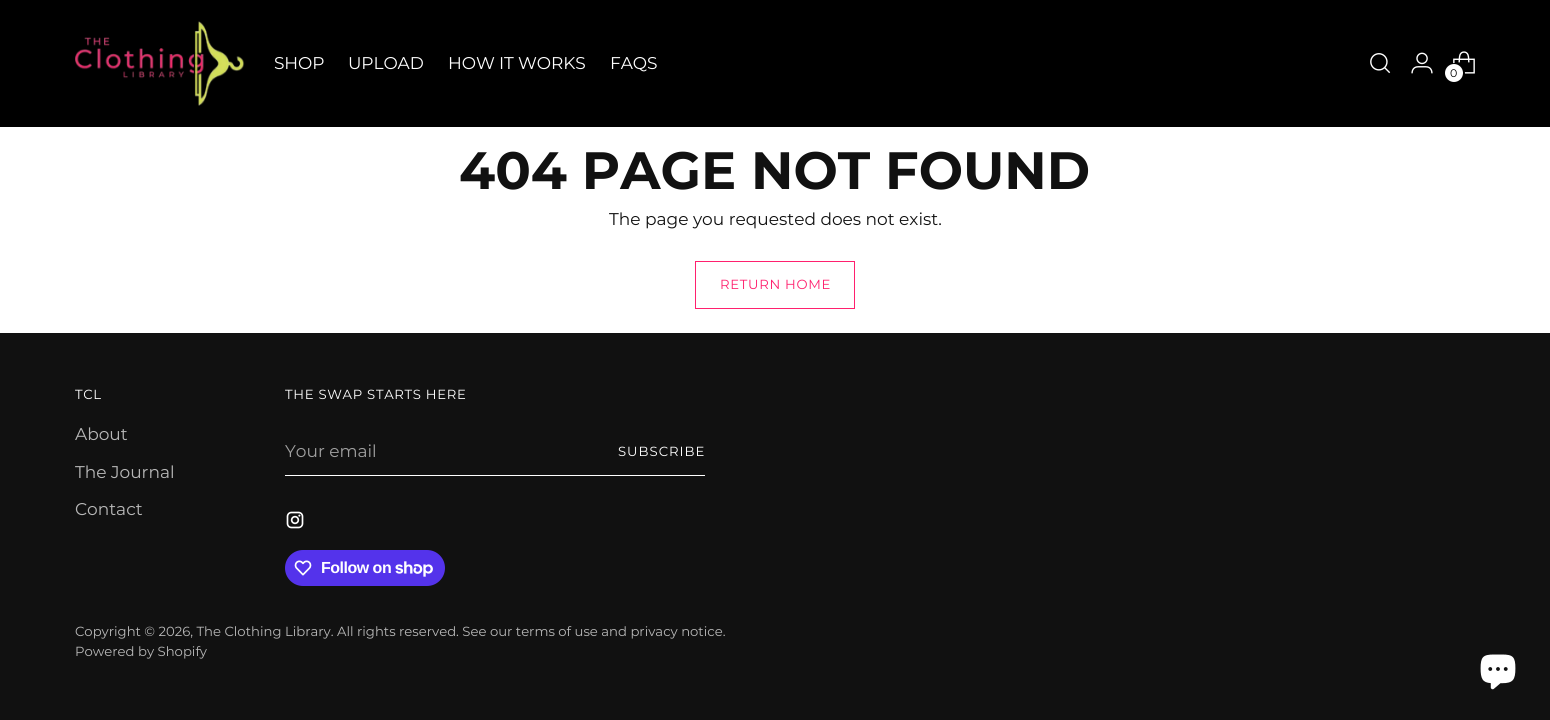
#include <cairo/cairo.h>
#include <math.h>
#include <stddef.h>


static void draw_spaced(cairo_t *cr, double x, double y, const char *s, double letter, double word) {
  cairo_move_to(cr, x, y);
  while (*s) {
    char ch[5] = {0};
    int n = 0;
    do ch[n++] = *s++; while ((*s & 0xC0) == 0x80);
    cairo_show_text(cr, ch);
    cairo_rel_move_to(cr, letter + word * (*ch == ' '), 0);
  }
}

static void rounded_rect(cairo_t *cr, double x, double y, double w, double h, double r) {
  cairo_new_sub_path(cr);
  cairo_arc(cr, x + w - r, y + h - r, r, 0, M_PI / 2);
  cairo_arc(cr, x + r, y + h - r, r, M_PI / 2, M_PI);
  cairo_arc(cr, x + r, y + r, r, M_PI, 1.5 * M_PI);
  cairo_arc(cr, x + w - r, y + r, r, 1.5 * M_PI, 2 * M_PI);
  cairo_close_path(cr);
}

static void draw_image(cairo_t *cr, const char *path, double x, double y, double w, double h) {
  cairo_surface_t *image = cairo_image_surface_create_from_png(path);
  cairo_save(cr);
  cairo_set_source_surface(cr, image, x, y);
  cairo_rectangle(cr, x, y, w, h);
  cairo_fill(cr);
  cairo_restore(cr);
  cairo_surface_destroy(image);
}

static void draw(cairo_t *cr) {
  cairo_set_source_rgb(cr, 1, 1, 1);
  cairo_paint(cr);
  cairo_set_source_rgb(cr, 0, 0, 0);
  cairo_rectangle(cr, 0, 0, 1550, 127);
  cairo_fill(cr);
  draw_image(cr, "images/1.png", 75, 21, 170, 85);
  draw_image(cr, "images/2.png", 1370, 53, 21, 21);
  draw_image(cr, "images/3.png", 1411, 52, 22, 22);
  draw_image(cr, "images/4.png", 1453, 51, 22, 23);
  cairo_arc(cr, 1454.5, 73.5, 9.5, 0, 2 * M_PI);
  cairo_stroke(cr);
  cairo_set_source_rgb(cr, 1, 1, 1);
  cairo_arc(cr, 1454, 73, 9, 0, 2 * M_PI);
  cairo_fill(cr);
  cairo_rectangle(cr, 695.5, 261.5, 159, 47);
  cairo_set_source_rgb(cr, 1, 32 / 255.0, 110 / 255.0);
  cairo_set_line_width(cr, 1);
  cairo_stroke(cr);
  cairo_set_source_rgb(cr, 17 / 255.0, 17 / 255.0, 17 / 255.0);
  cairo_rectangle(cr, 0, 333, 1550, 387);
  cairo_fill(cr);
  cairo_set_source_rgb(cr, 1, 1, 1);
  cairo_rectangle(cr, 285, 475, 420, 1);
  cairo_fill(cr);
  draw_image(cr, "images/5.png", 286, 511, 18, 18);
  cairo_set_source_rgb(cr, 84 / 255.0, 51 / 255.0, 235 / 255.0);
  rounded_rect(cr, 285, 550, 160, 36, 18);
  cairo_fill(cr);
  draw_image(cr, "images/6.png", 294, 560, 18, 16);
  draw_image(cr, "images/7.png", 395, 561, 38, 16);
  draw_image(cr, "images/8.png", 1480, 654, 36, 36);
  cairo_select_font_face(cr, "Montserrat", CAIRO_FONT_SLANT_NORMAL, CAIRO_FONT_WEIGHT_NORMAL);
  cairo_set_font_size(cr, 17);
  cairo_set_source_rgb(cr, 1, 1, 1);
  draw_spaced(cr, 274, 69, "SHOP", -0.1, 0);
  draw_spaced(cr, 348, 69, "UPLOAD", -0.1, 0);
  draw_spaced(cr, 448, 69, "HOW IT WORKS", -0.1, 0);
  draw_spaced(cr, 610, 69, "FAQS", -0.1, 0);
  cairo_set_font_size(cr, 11);
  cairo_set_source_rgb(cr, 0, 0, 0);
  cairo_move_to(cr, 1450, 77);
  cairo_show_text(cr, "0");
  cairo_select_font_face(cr, "Montserrat", CAIRO_FONT_SLANT_NORMAL, CAIRO_FONT_WEIGHT_BOLD);
  cairo_set_font_size(cr, 52.5);
  cairo_set_source_rgb(cr, 17 / 255.0, 17 / 255.0, 17 / 255.0);
  cairo_move_to(cr, 459, 189);
  cairo_show_text(cr, "404 PAGE NOT FOUND");
  cairo_select_font_face(cr, "Montserrat", CAIRO_FONT_SLANT_NORMAL, CAIRO_FONT_WEIGHT_NORMAL);
  cairo_set_font_size(cr, 17);
  cairo_move_to(cr, 609, 225);
  cairo_show_text(cr, "The page you requested does not exist.");
  cairo_set_font_size(cr, 13.2);
  cairo_set_source_rgb(cr, 1, 32 / 255.0, 110 / 255.0);
  draw_spaced(cr, 720, 289, "RETURN HOME", 0.7, 0);
  cairo_set_source_rgb(cr, 1, 1, 1);
  draw_spaced(cr, 75, 399, "TCL", 0.7, 0);
  cairo_set_font_size(cr, 17);
  cairo_set_source_rgb(cr, 184 / 255.0, 184 / 255.0, 184 / 255.0);
  cairo_move_to(cr, 75, 440);
  cairo_show_text(cr, "About");
  cairo_move_to(cr, 75, 478);
  cairo_show_text(cr, "The Journal");
  cairo_move_to(cr, 75, 515);
  cairo_show_text(cr, "Contact");
  cairo_set_font_size(cr, 13.2);
  cairo_set_source_rgb(cr, 1, 1, 1);
  draw_spaced(cr, 285, 399, "THE SWAP STARTS HERE", 0.7, 0);
  cairo_set_font_size(cr, 17);
  cairo_set_source_rgb(cr, 160 / 255.0, 160 / 255.0, 160 / 255.0);
  cairo_move_to(cr, 285, 457);
  cairo_show_text(cr, "Your email");
  cairo_set_font_size(cr, 13.2);
  cairo_set_source_rgb(cr, 1, 1, 1);
  draw_spaced(cr, 618, 456, "SUBSCRIBE", 1, 0);
  cairo_select_font_face(cr, "Liberation Sans", CAIRO_FONT_SLANT_NORMAL, CAIRO_FONT_WEIGHT_BOLD);
  cairo_set_font_size(cr, 16);
  draw_spaced(cr, 321, 573, "Follow on", -0.5, 0);
  cairo_select_font_face(cr, "Montserrat", CAIRO_FONT_SLANT_NORMAL, CAIRO_FONT_WEIGHT_NORMAL);
  cairo_set_font_size(cr, 13.2);
  cairo_set_source_rgb(cr, 184 / 255.0, 184 / 255.0, 184 / 255.0);
  cairo_move_to(cr, 75, 636);
  cairo_show_text(cr, "Copyright © 2026, The Clothing Library. All rights reserved. See our terms of use and privacy notice.");
  cairo_move_to(cr, 75, 656);
  cairo_show_text(cr, "Powered by Shopify");
}

int main(void) {
  cairo_surface_t *surface = cairo_image_surface_create(CAIRO_FORMAT_RGB24, 1550, 720);
  cairo_t *cr = cairo_create(surface);
  cairo_font_options_t *options = cairo_font_options_create();
  cairo_font_options_set_hint_metrics(options, CAIRO_HINT_METRICS_OFF);
  cairo_font_options_set_hint_style(options, CAIRO_HINT_STYLE_NONE);
  cairo_set_font_options(cr, options);
  cairo_set_miter_limit(cr, 4);
  draw(cr);
  cairo_surface_write_to_png(surface, "out.png");
  cairo_font_options_destroy(options);
  cairo_destroy(cr);
  cairo_surface_destroy(surface);
  return 0;
}
